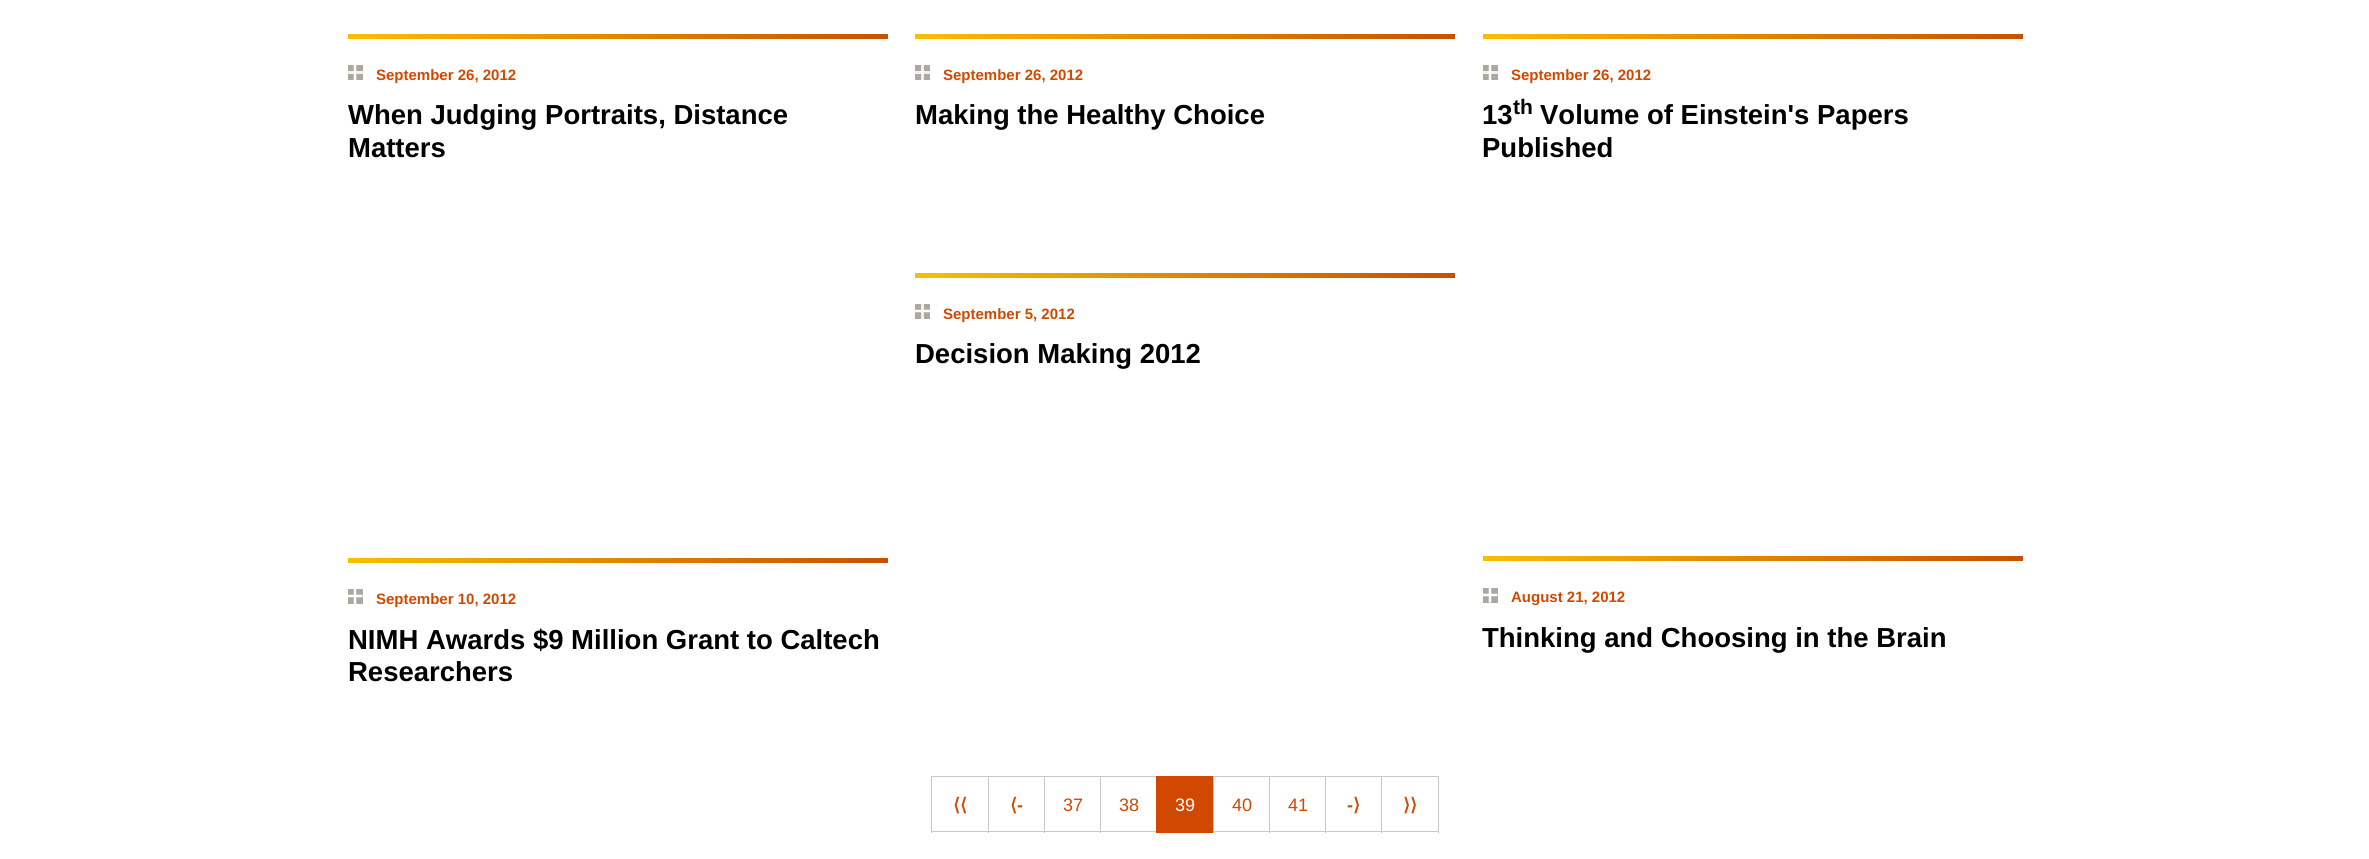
#include <cairo/cairo.h>
#include <math.h>
#include <stddef.h>


static void draw(cairo_t *cr) {
  cairo_pattern_t *gradient;
  cairo_set_source_rgb(cr, 1, 1, 1);
  cairo_paint(cr);
  gradient = cairo_pattern_create_linear(348, 36, 888, 36);
  cairo_pattern_add_color_stop_rgba(gradient, 0, 249 / 255.0, 190 / 255.0, 1 / 255.0, 1);
  cairo_pattern_add_color_stop_rgba(gradient, 1, 199 / 255.0, 80 / 255.0, 0, 1);
  cairo_set_source(cr, gradient);
  cairo_pattern_destroy(gradient);
  cairo_rectangle(cr, 348, 34, 540, 5);
  cairo_fill(cr);
  cairo_set_source_rgb(cr, 170 / 255.0, 169 / 255.0, 159 / 255.0);
  cairo_rectangle(cr, 348, 65, 15, 15);
  cairo_fill(cr);
  cairo_new_path(cr);
  cairo_move_to(cr, 355, 65);
  cairo_line_to(cr, 355, 80);
  cairo_set_source_rgb(cr, 1, 1, 1);
  cairo_set_line_width(cr, 2.5);
  cairo_stroke(cr);
  cairo_set_source_rgba(cr, 1, 1, 1, 0.83);
  cairo_rectangle(cr, 348, 71, 15, 3);
  cairo_fill(cr);
  gradient = cairo_pattern_create_linear(915, 36, 1455, 36);
  cairo_pattern_add_color_stop_rgba(gradient, 0, 249 / 255.0, 190 / 255.0, 1 / 255.0, 1);
  cairo_pattern_add_color_stop_rgba(gradient, 1, 199 / 255.0, 80 / 255.0, 0, 1);
  cairo_set_source(cr, gradient);
  cairo_pattern_destroy(gradient);
  cairo_rectangle(cr, 915, 34, 540, 5);
  cairo_fill(cr);
  cairo_set_source_rgb(cr, 170 / 255.0, 169 / 255.0, 159 / 255.0);
  cairo_rectangle(cr, 915, 65, 15, 15);
  cairo_fill(cr);
  cairo_set_source_rgb(cr, 241 / 255.0, 240 / 255.0, 239 / 255.0);
  cairo_rectangle(cr, 915, 71, 15, 3);
  cairo_fill(cr);
  cairo_set_source_rgb(cr, 241 / 255.0, 241 / 255.0, 239 / 255.0);
  cairo_rectangle(cr, 921, 65, 3, 15);
  cairo_fill(cr);
  cairo_set_source_rgb(cr, 253 / 255.0, 253 / 255.0, 252 / 255.0);
  cairo_rectangle(cr, 921, 71, 3, 3);
  cairo_fill(cr);
  gradient = cairo_pattern_create_linear(1483, 36, 2023, 36);
  cairo_pattern_add_color_stop_rgba(gradient, 0, 249 / 255.0, 190 / 255.0, 1 / 255.0, 1);
  cairo_pattern_add_color_stop_rgba(gradient, 1, 199 / 255.0, 80 / 255.0, 0, 1);
  cairo_set_source(cr, gradient);
  cairo_pattern_destroy(gradient);
  cairo_rectangle(cr, 1483, 34, 540, 5);
  cairo_fill(cr);
  cairo_set_source_rgb(cr, 170 / 255.0, 169 / 255.0, 159 / 255.0);
  cairo_rectangle(cr, 1483, 65, 15, 15);
  cairo_fill(cr);
  cairo_new_path(cr);
  cairo_move_to(cr, 1490, 65);
  cairo_line_to(cr, 1490, 80);
  cairo_set_source_rgb(cr, 1, 1, 1);
  cairo_stroke(cr);
  cairo_set_source_rgba(cr, 1, 1, 1, 0.83);
  cairo_rectangle(cr, 1483, 71, 15, 3);
  cairo_fill(cr);
  gradient = cairo_pattern_create_linear(915, 275, 1455, 275);
  cairo_pattern_add_color_stop_rgba(gradient, 0, 249 / 255.0, 190 / 255.0, 1 / 255.0, 1);
  cairo_pattern_add_color_stop_rgba(gradient, 1, 199 / 255.0, 80 / 255.0, 0, 1);
  cairo_set_source(cr, gradient);
  cairo_pattern_destroy(gradient);
  cairo_rectangle(cr, 915, 273, 540, 5);
  cairo_fill(cr);
  cairo_set_source_rgb(cr, 170 / 255.0, 169 / 255.0, 159 / 255.0);
  cairo_rectangle(cr, 915, 304, 15, 15);
  cairo_fill(cr);
  cairo_set_source_rgb(cr, 241 / 255.0, 241 / 255.0, 239 / 255.0);
  cairo_rectangle(cr, 921, 304, 3, 15);
  cairo_fill(cr);
  cairo_new_path(cr);
  cairo_move_to(cr, 915, 311);
  cairo_line_to(cr, 930, 311);
  cairo_set_source_rgb(cr, 1, 1, 1);
  cairo_stroke(cr);
  gradient = cairo_pattern_create_linear(348, 560, 888, 560);
  cairo_pattern_add_color_stop_rgba(gradient, 0, 249 / 255.0, 190 / 255.0, 1 / 255.0, 1);
  cairo_pattern_add_color_stop_rgba(gradient, 1, 199 / 255.0, 80 / 255.0, 0, 1);
  cairo_set_source(cr, gradient);
  cairo_pattern_destroy(gradient);
  cairo_rectangle(cr, 348, 558, 540, 5);
  cairo_fill(cr);
  cairo_set_source_rgb(cr, 170 / 255.0, 169 / 255.0, 159 / 255.0);
  cairo_rectangle(cr, 348, 589, 15, 15);
  cairo_fill(cr);
  cairo_new_path(cr);
  cairo_move_to(cr, 355, 589);
  cairo_line_to(cr, 355, 604);
  cairo_set_source_rgb(cr, 1, 1, 1);
  cairo_stroke(cr);
  cairo_save(cr);
  cairo_rectangle(cr, 348, 589, 15, 15);
  cairo_clip(cr);
  cairo_new_path(cr);
  cairo_move_to(cr, 347.5, 596);
  cairo_line_to(cr, 362.5, 596);
  cairo_stroke(cr);
  cairo_restore(cr);
  gradient = cairo_pattern_create_linear(1483, 559, 2023, 559);
  cairo_pattern_add_color_stop_rgba(gradient, 0, 249 / 255.0, 190 / 255.0, 1 / 255.0, 1);
  cairo_pattern_add_color_stop_rgba(gradient, 1, 199 / 255.0, 80 / 255.0, 0, 1);
  cairo_set_source(cr, gradient);
  cairo_pattern_destroy(gradient);
  cairo_rectangle(cr, 1483, 556, 540, 5);
  cairo_fill(cr);
  cairo_set_source_rgb(cr, 170 / 255.0, 169 / 255.0, 159 / 255.0);
  cairo_rectangle(cr, 1483, 588, 15, 15);
  cairo_fill(cr);
  cairo_save(cr);
  cairo_rectangle(cr, 1483, 588, 15, 15);
  cairo_clip(cr);
  cairo_new_path(cr);
  cairo_move_to(cr, 1490, 587.5);
  cairo_line_to(cr, 1490, 602.5);
  cairo_move_to(cr, 1482.5, 595);
  cairo_line_to(cr, 1497.5, 595);
  cairo_set_source_rgb(cr, 1, 1, 1);
  cairo_stroke(cr);
  cairo_restore(cr);
  cairo_set_source_rgb(cr, 200 / 255.0, 200 / 255.0, 200 / 255.0);
  cairo_rectangle(cr, 931, 776, 225, 1);
  cairo_fill(cr);
  cairo_rectangle(cr, 931, 831, 225, 1);
  cairo_fill(cr);
  cairo_rectangle(cr, 931, 776, 1, 57);
  cairo_fill(cr);
  cairo_rectangle(cr, 988, 776, 1, 57);
  cairo_fill(cr);
  cairo_rectangle(cr, 1044, 776, 1, 57);
  cairo_fill(cr);
  cairo_rectangle(cr, 1100, 776, 1, 57);
  cairo_fill(cr);
  cairo_set_source_rgb(cr, 209 / 255.0, 73 / 255.0, 0);
  cairo_rectangle(cr, 1156, 776, 57, 57);
  cairo_fill(cr);
  cairo_set_source_rgb(cr, 200 / 255.0, 200 / 255.0, 200 / 255.0);
  cairo_rectangle(cr, 1213, 776, 225, 1);
  cairo_fill(cr);
  cairo_rectangle(cr, 1213, 831, 225, 1);
  cairo_fill(cr);
  cairo_rectangle(cr, 1213, 776, 1, 57);
  cairo_fill(cr);
  cairo_rectangle(cr, 1269, 776, 1, 57);
  cairo_fill(cr);
  cairo_rectangle(cr, 1325, 776, 1, 57);
  cairo_fill(cr);
  cairo_rectangle(cr, 1438, 776, 1, 57);
  cairo_fill(cr);
  cairo_rectangle(cr, 1381, 776, 1, 57);
  cairo_fill(cr);
  cairo_select_font_face(cr, "Liberation Sans", CAIRO_FONT_SLANT_NORMAL, CAIRO_FONT_WEIGHT_BOLD);
  cairo_set_font_size(cr, 15);
  cairo_set_source_rgb(cr, 209 / 255.0, 73 / 255.0, 0);
  cairo_move_to(cr, 376, 80);
  cairo_show_text(cr, "September 26, 2012");
  cairo_set_font_size(cr, 27.5);
  cairo_set_source_rgb(cr, 0, 0, 0);
  cairo_move_to(cr, 348, 124);
  cairo_show_text(cr, "When Judging Portraits, Distance");
  cairo_move_to(cr, 348, 157);
  cairo_show_text(cr, "Matters");
  cairo_set_font_size(cr, 15);
  cairo_set_source_rgb(cr, 209 / 255.0, 73 / 255.0, 0);
  cairo_move_to(cr, 943, 80);
  cairo_show_text(cr, "September 26, 2012");
  cairo_set_font_size(cr, 27.5);
  cairo_set_source_rgb(cr, 0, 0, 0);
  cairo_move_to(cr, 915, 124);
  cairo_show_text(cr, "Making the Healthy Choice");
  cairo_set_font_size(cr, 15);
  cairo_set_source_rgb(cr, 209 / 255.0, 73 / 255.0, 0);
  cairo_move_to(cr, 1511, 80);
  cairo_show_text(cr, "September 26, 2012");
  cairo_set_font_size(cr, 27.5);
  cairo_set_source_rgb(cr, 0, 0, 0);
  cairo_move_to(cr, 1482, 124);
  cairo_show_text(cr, "13");
  cairo_set_font_size(cr, 21);
  cairo_move_to(cr, 1513, 114);
  cairo_show_text(cr, "th");
  cairo_set_font_size(cr, 27.5);
  cairo_move_to(cr, 1540, 124);
  cairo_show_text(cr, "Volume of Einstein's Papers");
  cairo_move_to(cr, 1482, 157);
  cairo_show_text(cr, "Published");
  cairo_set_font_size(cr, 15);
  cairo_set_source_rgb(cr, 209 / 255.0, 73 / 255.0, 0);
  cairo_move_to(cr, 943, 319);
  cairo_show_text(cr, "September 5, 2012");
  cairo_set_font_size(cr, 27.5);
  cairo_set_source_rgb(cr, 0, 0, 0);
  cairo_move_to(cr, 915, 363);
  cairo_show_text(cr, "Decision Making 2012");
  cairo_set_font_size(cr, 15);
  cairo_set_source_rgb(cr, 209 / 255.0, 73 / 255.0, 0);
  cairo_move_to(cr, 376, 604);
  cairo_show_text(cr, "September 10, 2012");
  cairo_set_font_size(cr, 27.5);
  cairo_set_source_rgb(cr, 0, 0, 0);
  cairo_move_to(cr, 348, 649);
  cairo_show_text(cr, "NIMH Awards $9 Million Grant to Caltech");
  cairo_move_to(cr, 348, 681);
  cairo_show_text(cr, "Researchers");
  cairo_set_font_size(cr, 15);
  cairo_set_source_rgb(cr, 209 / 255.0, 73 / 255.0, 0);
  cairo_move_to(cr, 1511, 602);
  cairo_show_text(cr, "August 21, 2012");
  cairo_set_font_size(cr, 27.5);
  cairo_set_source_rgb(cr, 0, 0, 0);
  cairo_move_to(cr, 1482, 647);
  cairo_show_text(cr, "Thinking and Choosing in the Brain");
  cairo_select_font_face(cr, "DejaVu Sans", CAIRO_FONT_SLANT_NORMAL, CAIRO_FONT_WEIGHT_BOLD);
  cairo_set_font_size(cr, 18);
  cairo_set_source_rgb(cr, 209 / 255.0, 73 / 255.0, 0);
  cairo_move_to(cr, 953, 811);
  cairo_show_text(cr, "⟨⟨");
  cairo_move_to(cr, 1010, 811);
  cairo_show_text(cr, "⟨");
  cairo_select_font_face(cr, "Liberation Sans", CAIRO_FONT_SLANT_NORMAL, CAIRO_FONT_WEIGHT_BOLD);
  cairo_move_to(cr, 1017, 811);
  cairo_show_text(cr, "-");
  cairo_select_font_face(cr, "Liberation Sans", CAIRO_FONT_SLANT_NORMAL, CAIRO_FONT_WEIGHT_NORMAL);
  cairo_move_to(cr, 1063, 811);
  cairo_show_text(cr, "37");
  cairo_move_to(cr, 1119, 811);
  cairo_show_text(cr, "38");
  cairo_set_source_rgb(cr, 1, 1, 1);
  cairo_move_to(cr, 1175, 811);
  cairo_show_text(cr, "39");
  cairo_set_source_rgb(cr, 209 / 255.0, 73 / 255.0, 0);
  cairo_move_to(cr, 1232, 811);
  cairo_show_text(cr, "40");
  cairo_move_to(cr, 1288, 811);
  cairo_show_text(cr, "41");
  cairo_select_font_face(cr, "Liberation Sans", CAIRO_FONT_SLANT_NORMAL, CAIRO_FONT_WEIGHT_BOLD);
  cairo_move_to(cr, 1347, 811);
  cairo_show_text(cr, "-");
  cairo_select_font_face(cr, "DejaVu Sans", CAIRO_FONT_SLANT_NORMAL, CAIRO_FONT_WEIGHT_BOLD);
  cairo_move_to(cr, 1353, 811);
  cairo_show_text(cr, "⟩");
  cairo_move_to(cr, 1403, 811);
  cairo_show_text(cr, "⟩⟩");
}

int main(void) {
  cairo_surface_t *surface = cairo_image_surface_create(CAIRO_FORMAT_RGB24, 2369, 859);
  cairo_t *cr = cairo_create(surface);
  cairo_font_options_t *options = cairo_font_options_create();
  cairo_font_options_set_hint_metrics(options, CAIRO_HINT_METRICS_OFF);
  cairo_font_options_set_hint_style(options, CAIRO_HINT_STYLE_NONE);
  cairo_set_font_options(cr, options);
  cairo_set_miter_limit(cr, 4);
  draw(cr);
  cairo_surface_write_to_png(surface, "out.png");
  cairo_font_options_destroy(options);
  cairo_destroy(cr);
  cairo_surface_destroy(surface);
  return 0;
}
